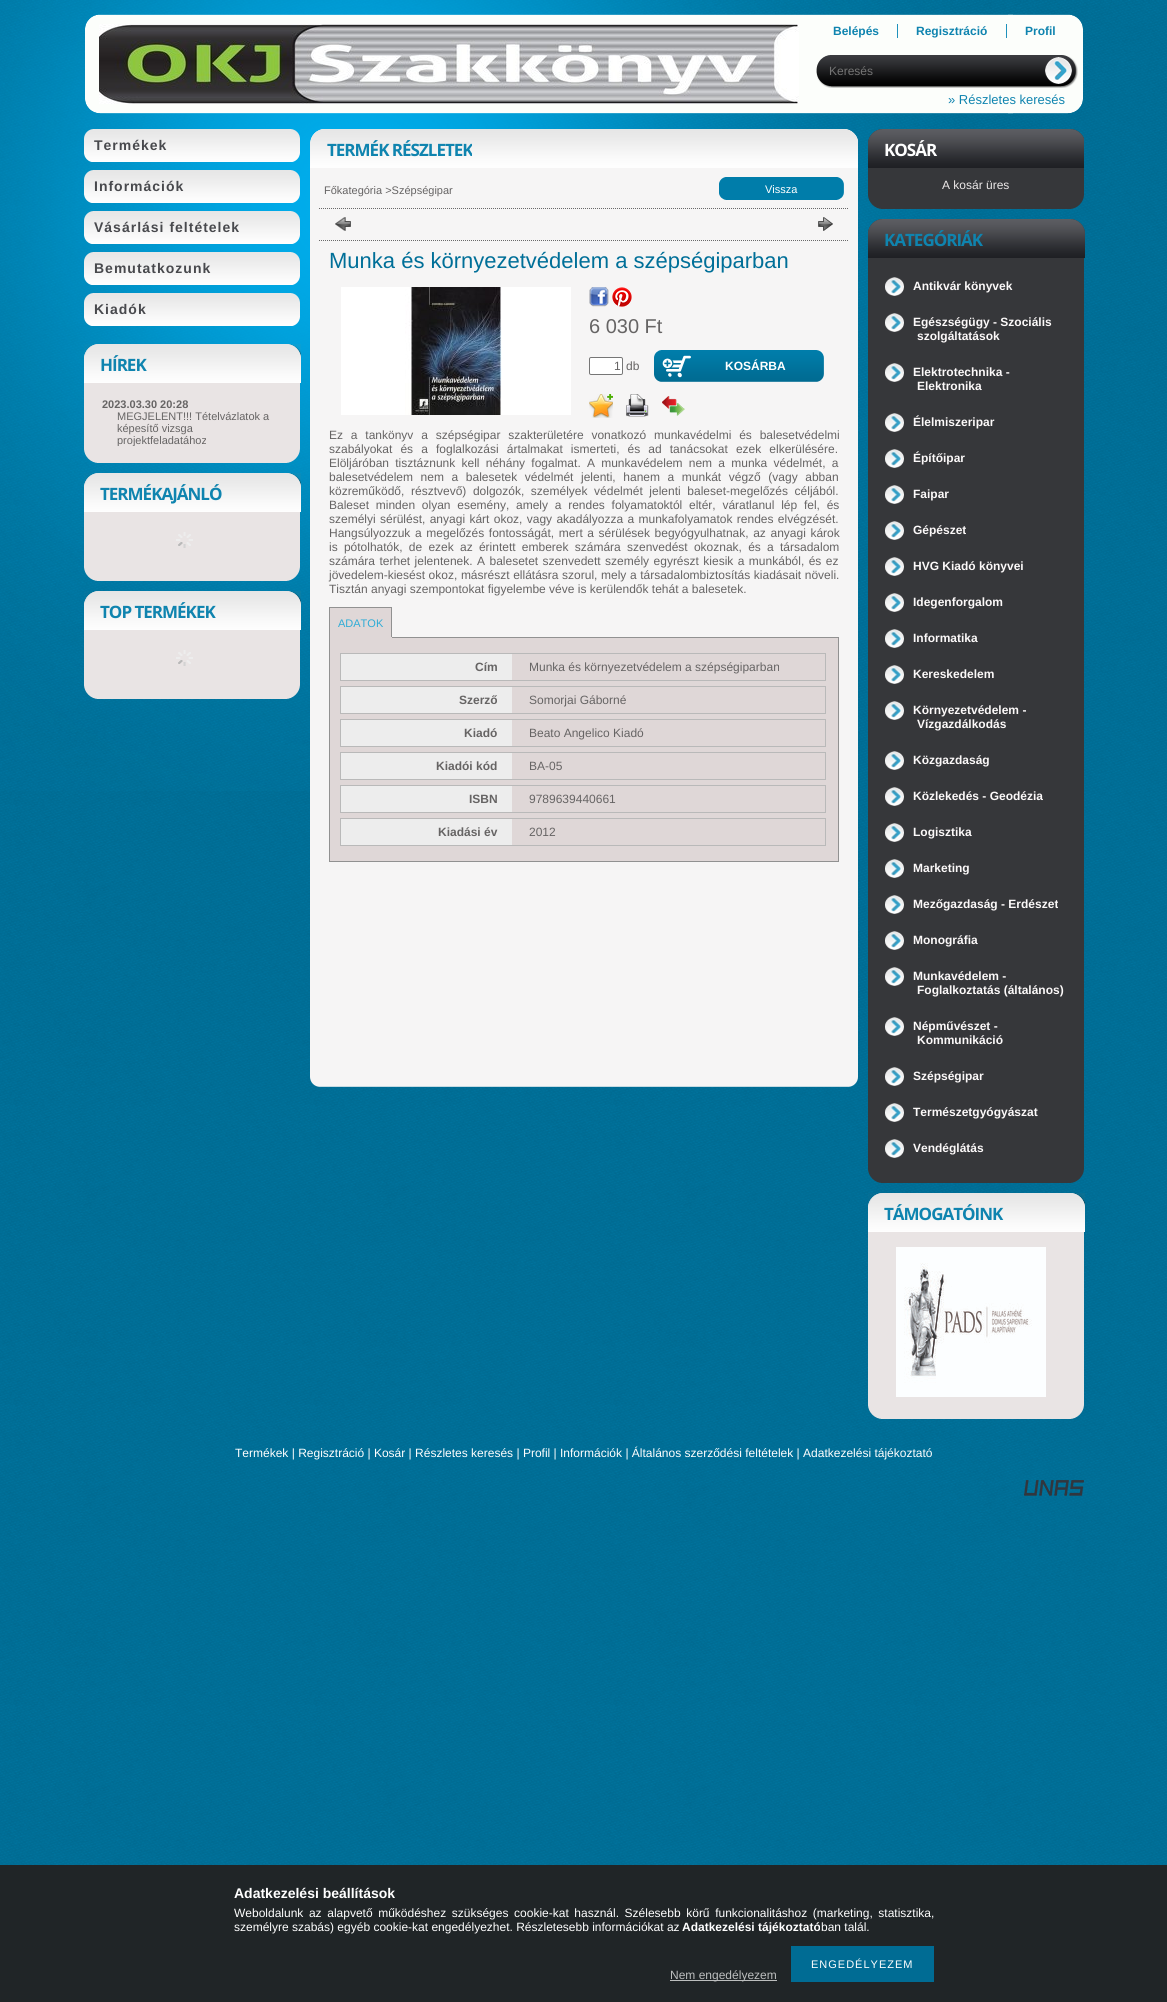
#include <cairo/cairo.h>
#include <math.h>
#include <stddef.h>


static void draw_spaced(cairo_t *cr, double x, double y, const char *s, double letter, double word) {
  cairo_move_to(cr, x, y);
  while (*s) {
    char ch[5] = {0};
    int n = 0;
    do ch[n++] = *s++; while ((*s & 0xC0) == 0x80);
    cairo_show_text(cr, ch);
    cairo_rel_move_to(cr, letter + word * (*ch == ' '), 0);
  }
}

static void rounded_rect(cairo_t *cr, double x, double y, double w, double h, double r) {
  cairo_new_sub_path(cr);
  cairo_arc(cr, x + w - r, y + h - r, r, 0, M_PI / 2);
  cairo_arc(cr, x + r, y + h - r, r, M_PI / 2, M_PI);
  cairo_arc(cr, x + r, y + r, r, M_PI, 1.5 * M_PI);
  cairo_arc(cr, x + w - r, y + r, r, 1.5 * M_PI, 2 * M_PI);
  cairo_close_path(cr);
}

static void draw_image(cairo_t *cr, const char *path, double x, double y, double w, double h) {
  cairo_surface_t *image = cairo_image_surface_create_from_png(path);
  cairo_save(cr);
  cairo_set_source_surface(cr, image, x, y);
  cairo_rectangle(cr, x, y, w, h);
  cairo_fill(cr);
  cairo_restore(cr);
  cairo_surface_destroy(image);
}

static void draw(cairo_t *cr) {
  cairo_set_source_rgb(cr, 1, 1, 1);
  cairo_paint(cr);
  draw_image(cr, "images/1.png", 0, 0, 1167, 2002);
  draw_image(cr, "images/2.png", 0, 0, 950, 791);
  draw_image(cr, "images/3.png", 85, 14, 998, 100);
  draw_image(cr, "images/4.png", 99, 24, 700, 80);
  cairo_set_source_rgb(cr, 31 / 255.0, 146 / 255.0, 188 / 255.0);
  cairo_rectangle(cr, 897, 24, 1, 14);
  cairo_fill(cr);
  cairo_rectangle(cr, 1006, 24, 1, 14);
  cairo_fill(cr);
  draw_image(cr, "images/5.png", 816, 55, 262, 33);
  draw_image(cr, "images/6.png", 84, 129, 216, 33);
  draw_image(cr, "images/7.png", 84, 170, 216, 33);
  draw_image(cr, "images/8.png", 84, 211, 216, 33);
  draw_image(cr, "images/9.png", 84, 252, 216, 33);
  draw_image(cr, "images/10.png", 84, 293, 216, 33);
  draw_image(cr, "images/11.png", 84, 344, 217, 39);
  cairo_set_source_rgb(cr, 233 / 255.0, 228 / 255.0, 228 / 255.0);
  cairo_rectangle(cr, 84, 383, 216, 63);
  cairo_fill(cr);
  draw_image(cr, "images/12.png", 84, 446, 216, 17);
  draw_image(cr, "images/13.png", 84, 473, 217, 39);
  cairo_rectangle(cr, 84, 512, 216, 52);
  cairo_fill(cr);
  draw_image(cr, "images/14.png", 176, 532, 17, 16);
  draw_image(cr, "images/15.png", 84, 564, 216, 17);
  draw_image(cr, "images/16.png", 84, 591, 217, 39);
  cairo_rectangle(cr, 84, 630, 216, 52);
  cairo_fill(cr);
  draw_image(cr, "images/14.png", 176, 650, 17, 16);
  draw_image(cr, "images/17.png", 84, 682, 216, 17);
  draw_image(cr, "images/18.png", 310, 129, 548, 39);
  cairo_set_source_rgb(cr, 246 / 255.0, 245 / 255.0, 245 / 255.0);
  cairo_rectangle(cr, 310, 168, 548, 904);
  cairo_fill(cr);
  draw_image(cr, "images/19.png", 719, 177, 125, 23);
  cairo_new_path(cr);
  cairo_move_to(cr, 319, 208.5);
  cairo_line_to(cr, 849, 208.5);
  cairo_set_source_rgb(cr, 105 / 255.0, 105 / 255.0, 105 / 255.0);
  cairo_set_line_width(cr, 1);
  cairo_set_dash(cr, (double[]){1, 1}, 2, 0);
  cairo_stroke(cr);
  draw_image(cr, "images/20.png", 335, 217, 16, 14);
  draw_image(cr, "images/21.png", 818, 217, 15, 14);
  cairo_new_path(cr);
  cairo_move_to(cr, 319, 240.5);
  cairo_line_to(cr, 849, 240.5);
  cairo_stroke(cr);
  draw_image(cr, "images/22.png", 341, 287, 230, 128);
  draw_image(cr, "images/23.png", 589, 287, 20, 20);
  draw_image(cr, "images/24.png", 612, 287, 20, 20);
  cairo_set_source_rgb(cr, 1, 1, 1);
  rounded_rect(cr, 589.5, 357.5, 33, 17, 1.5);
  cairo_fill_preserve(cr);
  cairo_set_source_rgb(cr, 118 / 255.0, 118 / 255.0, 118 / 255.0);
  cairo_set_dash(cr, NULL, 0, 0);
  cairo_stroke(cr);
  draw_image(cr, "images/25.png", 654, 350, 170, 32);
  draw_image(cr, "images/26.png", 589, 394, 24, 24);
  draw_image(cr, "images/27.png", 626, 394, 23, 23);
  draw_image(cr, "images/28.png", 662, 396, 23, 20);
  cairo_set_source_rgb(cr, 223 / 255.0, 215 / 255.0, 215 / 255.0);
  cairo_rectangle(cr, 330, 608, 61, 29);
  cairo_fill(cr);
  cairo_set_source_rgb(cr, 145 / 255.0, 145 / 255.0, 145 / 255.0);
  cairo_rectangle(cr, 329, 607, 63, 1);
  cairo_fill(cr);
  cairo_set_source_rgb(cr, 223 / 255.0, 215 / 255.0, 215 / 255.0);
  cairo_rectangle(cr, 329.5, 637.5, 509, 224);
  cairo_fill_preserve(cr);
  cairo_set_source_rgb(cr, 145 / 255.0, 145 / 255.0, 145 / 255.0);
  cairo_stroke(cr);
  cairo_rectangle(cr, 391, 607, 1, 31);
  cairo_fill(cr);
  cairo_set_source_rgb(cr, 223 / 255.0, 215 / 255.0, 215 / 255.0);
  cairo_rectangle(cr, 329, 637, 63, 1);
  cairo_fill(cr);
  cairo_set_source_rgb(cr, 145 / 255.0, 145 / 255.0, 145 / 255.0);
  cairo_rectangle(cr, 329, 607, 1, 31);
  cairo_fill(cr);
  cairo_rectangle(cr, 340.5, 653.5, 485, 27);
  cairo_set_source_rgb(cr, 185 / 255.0, 185 / 255.0, 185 / 255.0);
  cairo_stroke(cr);
  cairo_set_source_rgb(cr, 237 / 255.0, 237 / 255.0, 237 / 255.0);
  cairo_rectangle(cr, 341, 654, 171, 26);
  cairo_fill(cr);
  cairo_rectangle(cr, 340.5, 686.5, 485, 27);
  cairo_set_source_rgb(cr, 185 / 255.0, 185 / 255.0, 185 / 255.0);
  cairo_stroke(cr);
  cairo_set_source_rgb(cr, 237 / 255.0, 237 / 255.0, 237 / 255.0);
  cairo_rectangle(cr, 341, 687, 171, 26);
  cairo_fill(cr);
  cairo_rectangle(cr, 340.5, 719.5, 485, 27);
  cairo_set_source_rgb(cr, 185 / 255.0, 185 / 255.0, 185 / 255.0);
  cairo_stroke(cr);
  cairo_set_source_rgb(cr, 237 / 255.0, 237 / 255.0, 237 / 255.0);
  cairo_rectangle(cr, 341, 720, 171, 26);
  cairo_fill(cr);
  cairo_rectangle(cr, 340.5, 752.5, 485, 27);
  cairo_set_source_rgb(cr, 185 / 255.0, 185 / 255.0, 185 / 255.0);
  cairo_stroke(cr);
  cairo_set_source_rgb(cr, 237 / 255.0, 237 / 255.0, 237 / 255.0);
  cairo_rectangle(cr, 341, 753, 171, 26);
  cairo_fill(cr);
  cairo_rectangle(cr, 340.5, 785.5, 485, 27);
  cairo_set_source_rgb(cr, 185 / 255.0, 185 / 255.0, 185 / 255.0);
  cairo_stroke(cr);
  cairo_set_source_rgb(cr, 237 / 255.0, 237 / 255.0, 237 / 255.0);
  cairo_rectangle(cr, 341, 786, 171, 26);
  cairo_fill(cr);
  cairo_rectangle(cr, 340.5, 818.5, 485, 27);
  cairo_set_source_rgb(cr, 185 / 255.0, 185 / 255.0, 185 / 255.0);
  cairo_stroke(cr);
  cairo_set_source_rgb(cr, 237 / 255.0, 237 / 255.0, 237 / 255.0);
  cairo_rectangle(cr, 341, 819, 171, 26);
  cairo_fill(cr);
  draw_image(cr, "images/29.png", 310, 1072, 548, 15);
  draw_image(cr, "images/30.png", 868, 129, 216, 39);
  cairo_set_source_rgb(cr, 54 / 255.0, 55 / 255.0, 58 / 255.0);
  cairo_rectangle(cr, 868, 168, 216, 24);
  cairo_fill(cr);
  draw_image(cr, "images/31.png", 868, 192, 216, 17);
  draw_image(cr, "images/32.png", 868, 219, 217, 39);
  cairo_rectangle(cr, 868, 258, 216, 908);
  cairo_fill(cr);
  draw_image(cr, "images/33.png", 885, 277, 19, 19);
  draw_image(cr, "images/33.png", 885, 313, 19, 19);
  draw_image(cr, "images/33.png", 885, 363, 19, 19);
  draw_image(cr, "images/33.png", 885, 413, 19, 19);
  draw_image(cr, "images/33.png", 885, 449, 19, 19);
  draw_image(cr, "images/33.png", 885, 485, 19, 19);
  draw_image(cr, "images/33.png", 885, 521, 19, 19);
  draw_image(cr, "images/33.png", 885, 557, 19, 19);
  draw_image(cr, "images/33.png", 885, 593, 19, 19);
  draw_image(cr, "images/33.png", 885, 629, 19, 19);
  draw_image(cr, "images/33.png", 885, 665, 19, 19);
  draw_image(cr, "images/33.png", 885, 701, 19, 19);
  draw_image(cr, "images/33.png", 885, 751, 19, 19);
  draw_image(cr, "images/33.png", 885, 787, 19, 19);
  draw_image(cr, "images/33.png", 885, 823, 19, 19);
  draw_image(cr, "images/33.png", 885, 859, 19, 19);
  draw_image(cr, "images/33.png", 885, 895, 19, 19);
  draw_image(cr, "images/33.png", 885, 931, 19, 19);
  draw_image(cr, "images/33.png", 885, 967, 19, 19);
  draw_image(cr, "images/33.png", 885, 1017, 19, 19);
  draw_image(cr, "images/33.png", 885, 1067, 19, 19);
  draw_image(cr, "images/33.png", 885, 1103, 19, 19);
  draw_image(cr, "images/33.png", 885, 1139, 19, 19);
  draw_image(cr, "images/34.png", 868, 1166, 216, 17);
  draw_image(cr, "images/35.png", 868, 1193, 217, 39);
  cairo_set_source_rgb(cr, 233 / 255.0, 228 / 255.0, 228 / 255.0);
  cairo_rectangle(cr, 868, 1232, 216, 170);
  cairo_fill(cr);
  draw_image(cr, "images/36.png", 896, 1247, 150, 150);
  draw_image(cr, "images/37.png", 868, 1402, 216, 17);
  draw_image(cr, "images/38.png", 1024, 1480, 60, 16);
  cairo_set_source_rgba(cr, 34 / 255.0, 34 / 255.0, 34 / 255.0, 0.95);
  cairo_rectangle(cr, 0, 1865, 1167, 137);
  cairo_fill(cr);
  cairo_set_source_rgb(cr, 0, 108 / 255.0, 148 / 255.0);
  cairo_rectangle(cr, 791, 1946, 143, 36);
  cairo_fill(cr);
  cairo_set_source_rgb(cr, 188 / 255.0, 190 / 255.0, 190 / 255.0);
  cairo_rectangle(cr, 670, 1980, 107, 1);
  cairo_fill(cr);
  cairo_select_font_face(cr, "Liberation Sans", CAIRO_FONT_SLANT_NORMAL, CAIRO_FONT_WEIGHT_BOLD);
  cairo_set_font_size(cr, 12);
  cairo_set_source_rgb(cr, 15 / 255.0, 132 / 255.0, 175 / 255.0);
  cairo_move_to(cr, 833, 35);
  cairo_show_text(cr, "Belépés");
  cairo_move_to(cr, 916, 35);
  cairo_show_text(cr, "Regisztráció");
  cairo_move_to(cr, 1025, 35);
  cairo_show_text(cr, "Profil");
  cairo_select_font_face(cr, "Liberation Sans", CAIRO_FONT_SLANT_NORMAL, CAIRO_FONT_WEIGHT_NORMAL);
  cairo_set_source_rgb(cr, 117 / 255.0, 117 / 255.0, 117 / 255.0);
  cairo_move_to(cr, 829, 75);
  cairo_show_text(cr, "Keresés");
  cairo_set_font_size(cr, 13);
  cairo_set_source_rgb(cr, 15 / 255.0, 132 / 255.0, 175 / 255.0);
  cairo_move_to(cr, 948, 104);
  cairo_show_text(cr, "» Részletes keresés");
  cairo_select_font_face(cr, "Liberation Sans", CAIRO_FONT_SLANT_NORMAL, CAIRO_FONT_WEIGHT_BOLD);
  cairo_set_font_size(cr, 14);
  cairo_set_source_rgb(cr, 72 / 255.0, 73 / 255.0, 77 / 255.0);
  draw_spaced(cr, 94, 150, "Termékek", 1, 0);
  draw_spaced(cr, 94, 191, "Információk", 1, 0);
  draw_spaced(cr, 94, 232, "Vásárlási feltételek", 1, 0);
  draw_spaced(cr, 94, 273, "Bemutatkozunk", 1, 0);
  draw_spaced(cr, 94, 314, "Kiadók", 1, 0);
  cairo_select_font_face(cr, "Open Sans", CAIRO_FONT_SLANT_NORMAL, CAIRO_FONT_WEIGHT_BOLD);
  cairo_set_font_size(cr, 17);
  cairo_set_source_rgb(cr, 15 / 255.0, 132 / 255.0, 175 / 255.0);
  draw_spaced(cr, 100, 371, "HÍREK", -1, 0);
  cairo_select_font_face(cr, "Liberation Sans", CAIRO_FONT_SLANT_NORMAL, CAIRO_FONT_WEIGHT_BOLD);
  cairo_set_font_size(cr, 11);
  cairo_set_source_rgb(cr, 102 / 255.0, 100 / 255.0, 100 / 255.0);
  cairo_move_to(cr, 102, 408);
  cairo_show_text(cr, "2023.03.30 20:28");
  cairo_select_font_face(cr, "Liberation Sans", CAIRO_FONT_SLANT_NORMAL, CAIRO_FONT_WEIGHT_NORMAL);
  cairo_move_to(cr, 117, 420);
  cairo_show_text(cr, "MEGJELENT!!! Tételvázlatok a");
  cairo_move_to(cr, 117, 432);
  cairo_show_text(cr, "képesítő vizsga");
  cairo_save(cr);
  cairo_rectangle(cr, 102, 393, 180, 53);
  cairo_clip(cr);
  cairo_move_to(cr, 117, 444);
  cairo_show_text(cr, "projektfeladatához");
  cairo_restore(cr);
  cairo_select_font_face(cr, "Open Sans", CAIRO_FONT_SLANT_NORMAL, CAIRO_FONT_WEIGHT_BOLD);
  cairo_set_font_size(cr, 17);
  cairo_set_source_rgb(cr, 15 / 255.0, 132 / 255.0, 175 / 255.0);
  draw_spaced(cr, 100, 500, "TERMÉKAJÁNLÓ", -1, 0);
  draw_spaced(cr, 100, 618, "TOP TERMÉKEK", -1, 0);
  cairo_save(cr);
  cairo_rectangle(cr, 310, 129, 162, 36);
  cairo_clip(cr);
  draw_spaced(cr, 327, 156, "TERMÉK RÉSZLETEK", -1, 0);
  cairo_restore(cr);
  cairo_select_font_face(cr, "Liberation Sans", CAIRO_FONT_SLANT_NORMAL, CAIRO_FONT_WEIGHT_NORMAL);
  cairo_set_font_size(cr, 11);
  cairo_set_source_rgb(cr, 102 / 255.0, 100 / 255.0, 100 / 255.0);
  cairo_move_to(cr, 324, 194);
  cairo_show_text(cr, "Főkategória >Szépségipar");
  cairo_set_source_rgb(cr, 1, 1, 1);
  cairo_move_to(cr, 765, 193);
  cairo_show_text(cr, "Vissza");
  cairo_set_font_size(cr, 22);
  cairo_set_source_rgb(cr, 0, 111 / 255.0, 152 / 255.0);
  cairo_move_to(cr, 329, 268);
  cairo_show_text(cr, "Munka és környezetvédelem a szépségiparban");
  cairo_set_font_size(cr, 20);
  cairo_set_source_rgb(cr, 102 / 255.0, 100 / 255.0, 100 / 255.0);
  cairo_move_to(cr, 589, 333);
  cairo_show_text(cr, "6 030 Ft");
  cairo_set_font_size(cr, 12);
  cairo_move_to(cr, 614, 370);
  cairo_show_text(cr, "1");
  cairo_move_to(cr, 626, 370);
  cairo_show_text(cr, "db");
  cairo_select_font_face(cr, "Liberation Sans", CAIRO_FONT_SLANT_NORMAL, CAIRO_FONT_WEIGHT_BOLD);
  cairo_set_source_rgb(cr, 1, 1, 1);
  cairo_move_to(cr, 725, 370);
  cairo_show_text(cr, "KOSÁRBA");
  cairo_select_font_face(cr, "Liberation Sans", CAIRO_FONT_SLANT_NORMAL, CAIRO_FONT_WEIGHT_NORMAL);
  cairo_set_source_rgb(cr, 102 / 255.0, 100 / 255.0, 100 / 255.0);
  draw_spaced(cr, 329, 439, "Ez a tankönyv a szépségipar szakterületére vonatkozó munkavédelmi és balesetvédelmi", 0, 4.5);
  draw_spaced(cr, 329, 453, "szabályokat és a foglalkozási ártalmakat ismerteti, és ad tanácsokat ezek elkerülésére.", 0, 4.75);
  draw_spaced(cr, 329, 467, "Elöljáróban tisztáznunk kell néhány fogalmat. A munkavédelem nem a munka védelmét, a", 0, 2.9);
  draw_spaced(cr, 329, 481, "balesetvédelem nem a balesetek védelmét jelenti, hanem a munkát végző (vagy abban", 0, 4.25);
  draw_spaced(cr, 329, 495, "közreműködő, résztvevő) dolgozók, személyek védelmét jelenti baleset-megelőzés céljából.", 0, 3.25);
  draw_spaced(cr, 329, 509, "Baleset minden olyan esemény, amely a rendes folyamatoktól eltér, váratlanul lép fel, és", 0, 3.4);
  draw_spaced(cr, 329, 523, "személyi sérülést, anyagi kárt okoz, vagy akadályozza a munkafolyamatok rendes elvégzését.", 0, 1);
  draw_spaced(cr, 329, 537, "Hangsúlyozzuk a megelőzés fontosságát, mert a sérülések begyógyulhatnak, az anyagi károk", 0, 1.25);
  draw_spaced(cr, 329, 551, "is pótolhatók, de ezek az érintett emberek számára szenvedést okoznak, és a társadalom", 0, 2.9);
  draw_spaced(cr, 329, 565, "számára terhet jelentenek. A balesetet szenvedett személy egyrészt kiesik a munkából, és ez", 0, 1.1);
  draw_spaced(cr, 329, 579, "jövedelem-kiesést okoz, másrészt ellátásra szorul, mely a társadalombiztosítás kiadásait növeli.", 0, 0.25);
  cairo_move_to(cr, 329, 593);
  cairo_show_text(cr, "Tisztán anyagi szempontokat figyelembe véve is kerülendők tehát a balesetek.");
  cairo_set_font_size(cr, 11);
  cairo_set_source_rgb(cr, 47 / 255.0, 172 / 255.0, 214 / 255.0);
  cairo_move_to(cr, 338, 627);
  cairo_show_text(cr, "ADATOK");
  cairo_select_font_face(cr, "Liberation Sans", CAIRO_FONT_SLANT_NORMAL, CAIRO_FONT_WEIGHT_BOLD);
  cairo_set_font_size(cr, 12);
  cairo_set_source_rgb(cr, 102 / 255.0, 100 / 255.0, 100 / 255.0);
  cairo_move_to(cr, 475, 671);
  cairo_show_text(cr, "Cím");
  cairo_select_font_face(cr, "Liberation Sans", CAIRO_FONT_SLANT_NORMAL, CAIRO_FONT_WEIGHT_NORMAL);
  cairo_move_to(cr, 529, 671);
  cairo_show_text(cr, "Munka és környezetvédelem a szépségiparban");
  cairo_select_font_face(cr, "Liberation Sans", CAIRO_FONT_SLANT_NORMAL, CAIRO_FONT_WEIGHT_BOLD);
  cairo_move_to(cr, 459, 704);
  cairo_show_text(cr, "Szerző");
  cairo_select_font_face(cr, "Liberation Sans", CAIRO_FONT_SLANT_NORMAL, CAIRO_FONT_WEIGHT_NORMAL);
  cairo_move_to(cr, 529, 704);
  cairo_show_text(cr, "Somorjai Gáborné");
  cairo_select_font_face(cr, "Liberation Sans", CAIRO_FONT_SLANT_NORMAL, CAIRO_FONT_WEIGHT_BOLD);
  cairo_move_to(cr, 464, 737);
  cairo_show_text(cr, "Kiadó");
  cairo_select_font_face(cr, "Liberation Sans", CAIRO_FONT_SLANT_NORMAL, CAIRO_FONT_WEIGHT_NORMAL);
  cairo_move_to(cr, 529, 737);
  cairo_show_text(cr, "Beato Angelico Kiadó");
  cairo_select_font_face(cr, "Liberation Sans", CAIRO_FONT_SLANT_NORMAL, CAIRO_FONT_WEIGHT_BOLD);
  cairo_move_to(cr, 436, 770);
  cairo_show_text(cr, "Kiadói kód");
  cairo_select_font_face(cr, "Liberation Sans", CAIRO_FONT_SLANT_NORMAL, CAIRO_FONT_WEIGHT_NORMAL);
  cairo_move_to(cr, 529, 770);
  cairo_show_text(cr, "BA-05");
  cairo_select_font_face(cr, "Liberation Sans", CAIRO_FONT_SLANT_NORMAL, CAIRO_FONT_WEIGHT_BOLD);
  cairo_move_to(cr, 469, 803);
  cairo_show_text(cr, "ISBN");
  cairo_select_font_face(cr, "Liberation Sans", CAIRO_FONT_SLANT_NORMAL, CAIRO_FONT_WEIGHT_NORMAL);
  cairo_move_to(cr, 529, 803);
  cairo_show_text(cr, "9789639440661");
  cairo_select_font_face(cr, "Liberation Sans", CAIRO_FONT_SLANT_NORMAL, CAIRO_FONT_WEIGHT_BOLD);
  cairo_move_to(cr, 438, 836);
  cairo_show_text(cr, "Kiadási év");
  cairo_select_font_face(cr, "Liberation Sans", CAIRO_FONT_SLANT_NORMAL, CAIRO_FONT_WEIGHT_NORMAL);
  cairo_move_to(cr, 529, 836);
  cairo_show_text(cr, "2012");
  cairo_select_font_face(cr, "Open Sans", CAIRO_FONT_SLANT_NORMAL, CAIRO_FONT_WEIGHT_BOLD);
  cairo_set_font_size(cr, 17);
  cairo_set_source_rgb(cr, 1, 1, 1);
  draw_spaced(cr, 884, 156, "KOSÁR", -1, 0);
  cairo_select_font_face(cr, "Liberation Sans", CAIRO_FONT_SLANT_NORMAL, CAIRO_FONT_WEIGHT_NORMAL);
  cairo_set_font_size(cr, 12);
  cairo_set_source_rgb(cr, 236 / 255.0, 232 / 255.0, 232 / 255.0);
  cairo_move_to(cr, 942, 189);
  cairo_show_text(cr, "A kosár üres");
  cairo_select_font_face(cr, "Open Sans", CAIRO_FONT_SLANT_NORMAL, CAIRO_FONT_WEIGHT_BOLD);
  cairo_set_font_size(cr, 17);
  cairo_set_source_rgb(cr, 15 / 255.0, 132 / 255.0, 175 / 255.0);
  draw_spaced(cr, 884, 246, "KATEGÓRIÁK", -1, 0);
  cairo_select_font_face(cr, "Liberation Sans", CAIRO_FONT_SLANT_NORMAL, CAIRO_FONT_WEIGHT_BOLD);
  cairo_set_font_size(cr, 12);
  cairo_set_source_rgb(cr, 252 / 255.0, 249 / 255.0, 249 / 255.0);
  cairo_move_to(cr, 913, 290);
  cairo_show_text(cr, "Antikvár könyvek");
  cairo_move_to(cr, 913, 326);
  cairo_show_text(cr, "Egészségügy - Szociális");
  cairo_move_to(cr, 917, 340);
  cairo_show_text(cr, "szolgáltatások");
  cairo_move_to(cr, 913, 376);
  cairo_show_text(cr, "Elektrotechnika -");
  cairo_move_to(cr, 917, 390);
  cairo_show_text(cr, "Elektronika");
  cairo_move_to(cr, 913, 426);
  cairo_show_text(cr, "Élelmiszeripar");
  cairo_move_to(cr, 913, 462);
  cairo_show_text(cr, "Építőipar");
  cairo_move_to(cr, 913, 498);
  cairo_show_text(cr, "Faipar");
  cairo_move_to(cr, 913, 534);
  cairo_show_text(cr, "Gépészet");
  cairo_move_to(cr, 913, 570);
  cairo_show_text(cr, "HVG Kiadó könyvei");
  cairo_move_to(cr, 913, 606);
  cairo_show_text(cr, "Idegenforgalom");
  cairo_move_to(cr, 913, 642);
  cairo_show_text(cr, "Informatika");
  cairo_move_to(cr, 913, 678);
  cairo_show_text(cr, "Kereskedelem");
  cairo_move_to(cr, 913, 714);
  cairo_show_text(cr, "Környezetvédelem -");
  cairo_move_to(cr, 917, 728);
  cairo_show_text(cr, "Vízgazdálkodás");
  cairo_move_to(cr, 913, 764);
  cairo_show_text(cr, "Közgazdaság");
  cairo_move_to(cr, 913, 800);
  cairo_show_text(cr, "Közlekedés - Geodézia");
  cairo_move_to(cr, 913, 836);
  cairo_show_text(cr, "Logisztika");
  cairo_move_to(cr, 913, 872);
  cairo_show_text(cr, "Marketing");
  cairo_move_to(cr, 913, 908);
  cairo_show_text(cr, "Mezőgazdaság - Erdészet");
  cairo_move_to(cr, 913, 944);
  cairo_show_text(cr, "Monográfia");
  cairo_move_to(cr, 913, 980);
  cairo_show_text(cr, "Munkavédelem -");
  cairo_move_to(cr, 917, 994);
  cairo_show_text(cr, "Foglalkoztatás (általános)");
  cairo_move_to(cr, 913, 1030);
  cairo_show_text(cr, "Népművészet -");
  cairo_move_to(cr, 917, 1044);
  cairo_show_text(cr, "Kommunikáció");
  cairo_move_to(cr, 913, 1080);
  cairo_show_text(cr, "Szépségipar");
  cairo_move_to(cr, 913, 1116);
  cairo_show_text(cr, "Természetgyógyászat");
  cairo_move_to(cr, 913, 1152);
  cairo_show_text(cr, "Vendéglátás");
  cairo_select_font_face(cr, "Open Sans", CAIRO_FONT_SLANT_NORMAL, CAIRO_FONT_WEIGHT_BOLD);
  cairo_set_font_size(cr, 17);
  cairo_set_source_rgb(cr, 15 / 255.0, 132 / 255.0, 175 / 255.0);
  draw_spaced(cr, 884, 1220, "TÁMOGATÓINK", -1, 0);
  cairo_select_font_face(cr, "Liberation Sans", CAIRO_FONT_SLANT_NORMAL, CAIRO_FONT_WEIGHT_NORMAL);
  cairo_set_font_size(cr, 12);
  cairo_set_source_rgb(cr, 1, 1, 1);
  cairo_move_to(cr, 235, 1457);
  cairo_show_text(cr, "Termékek | Regisztráció | Kosár | Részletes keresés | Profil | Információk | Általános szerződési feltételek | Adatkezelési tájékoztató");
  cairo_select_font_face(cr, "Liberation Sans", CAIRO_FONT_SLANT_NORMAL, CAIRO_FONT_WEIGHT_BOLD);
  cairo_set_font_size(cr, 14);
  cairo_move_to(cr, 234, 1898);
  cairo_show_text(cr, "Adatkezelési beállítások");
  cairo_select_font_face(cr, "Liberation Sans", CAIRO_FONT_SLANT_NORMAL, CAIRO_FONT_WEIGHT_NORMAL);
  cairo_set_font_size(cr, 12);
  draw_spaced(cr, 234, 1917, "Weboldalunk az alapvető működéshez szükséges cookie-kat használ. Szélesebb körű funkcionalitáshoz (marketing, statisztika,", 0, 2.25);
  cairo_move_to(cr, 234, 1931);
  cairo_show_text(cr, "személyre szabás) egyéb cookie-kat engedélyezhet. Részletesebb információkat az");
  cairo_select_font_face(cr, "Liberation Sans", CAIRO_FONT_SLANT_NORMAL, CAIRO_FONT_WEIGHT_BOLD);
  cairo_move_to(cr, 682, 1931);
  cairo_show_text(cr, "Adatkezelési tájékoztató");
  cairo_select_font_face(cr, "Liberation Sans", CAIRO_FONT_SLANT_NORMAL, CAIRO_FONT_WEIGHT_NORMAL);
  cairo_move_to(cr, 821, 1931);
  cairo_show_text(cr, "ban talál.");
  cairo_set_font_size(cr, 11);
  draw_spaced(cr, 811, 1968, "ENGEDÉLYEZEM", 1, 0);
  cairo_set_font_size(cr, 12);
  cairo_set_source_rgb(cr, 188 / 255.0, 190 / 255.0, 190 / 255.0);
  cairo_move_to(cr, 670, 1979);
  cairo_show_text(cr, "Nem engedélyezem");
}

int main(void) {
  cairo_surface_t *surface = cairo_image_surface_create(CAIRO_FORMAT_RGB24, 1167, 2002);
  cairo_t *cr = cairo_create(surface);
  cairo_font_options_t *options = cairo_font_options_create();
  cairo_font_options_set_hint_metrics(options, CAIRO_HINT_METRICS_OFF);
  cairo_font_options_set_hint_style(options, CAIRO_HINT_STYLE_NONE);
  cairo_set_font_options(cr, options);
  cairo_set_miter_limit(cr, 4);
  draw(cr);
  cairo_surface_write_to_png(surface, "out.png");
  cairo_font_options_destroy(options);
  cairo_destroy(cr);
  cairo_surface_destroy(surface);
  return 0;
}
